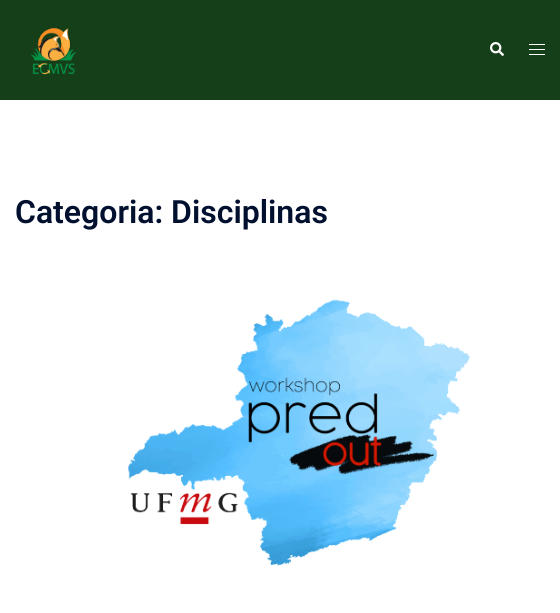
#include <cairo/cairo.h>
#include <math.h>
#include <stddef.h>


static void draw_image(cairo_t *cr, const char *path, double x, double y, double w, double h) {
  cairo_surface_t *image = cairo_image_surface_create_from_png(path);
  cairo_save(cr);
  cairo_set_source_surface(cr, image, x, y);
  cairo_rectangle(cr, x, y, w, h);
  cairo_fill(cr);
  cairo_restore(cr);
  cairo_surface_destroy(image);
}

static void draw(cairo_t *cr) {
  cairo_set_source_rgb(cr, 1, 1, 1);
  cairo_paint(cr);
  cairo_set_source_rgb(cr, 20 / 255.0, 63 / 255.0, 25 / 255.0);
  cairo_rectangle(cr, 0, 0, 560, 100);
  cairo_fill(cr);
  draw_image(cr, "images/1.png", 31, 28, 46, 47);
  draw_image(cr, "images/2.png", 490, 42, 14, 14);
  cairo_set_source_rgb(cr, 1, 1, 1);
  cairo_rectangle(cr, 529, 44, 16, 1);
  cairo_fill(cr);
  cairo_rectangle(cr, 529, 49, 16, 1);
  cairo_fill(cr);
  cairo_rectangle(cr, 529, 54, 16, 1);
  cairo_fill(cr);
  draw_image(cr, "images/3.png", 127, 299, 343, 267);
  cairo_select_font_face(cr, "Roboto SemiBold", CAIRO_FONT_SLANT_NORMAL, CAIRO_FONT_WEIGHT_NORMAL);
  cairo_set_font_size(cr, 32);
  cairo_set_source_rgb(cr, 0, 16 / 255.0, 46 / 255.0);
  cairo_move_to(cr, 15, 223);
  cairo_show_text(cr, "Categoria: Disciplinas");
}

int main(void) {
  cairo_surface_t *surface = cairo_image_surface_create(CAIRO_FORMAT_RGB24, 560, 613);
  cairo_t *cr = cairo_create(surface);
  cairo_font_options_t *options = cairo_font_options_create();
  cairo_font_options_set_hint_metrics(options, CAIRO_HINT_METRICS_OFF);
  cairo_font_options_set_hint_style(options, CAIRO_HINT_STYLE_NONE);
  cairo_set_font_options(cr, options);
  cairo_set_miter_limit(cr, 4);
  draw(cr);
  cairo_surface_write_to_png(surface, "out.png");
  cairo_font_options_destroy(options);
  cairo_destroy(cr);
  cairo_surface_destroy(surface);
  return 0;
}
